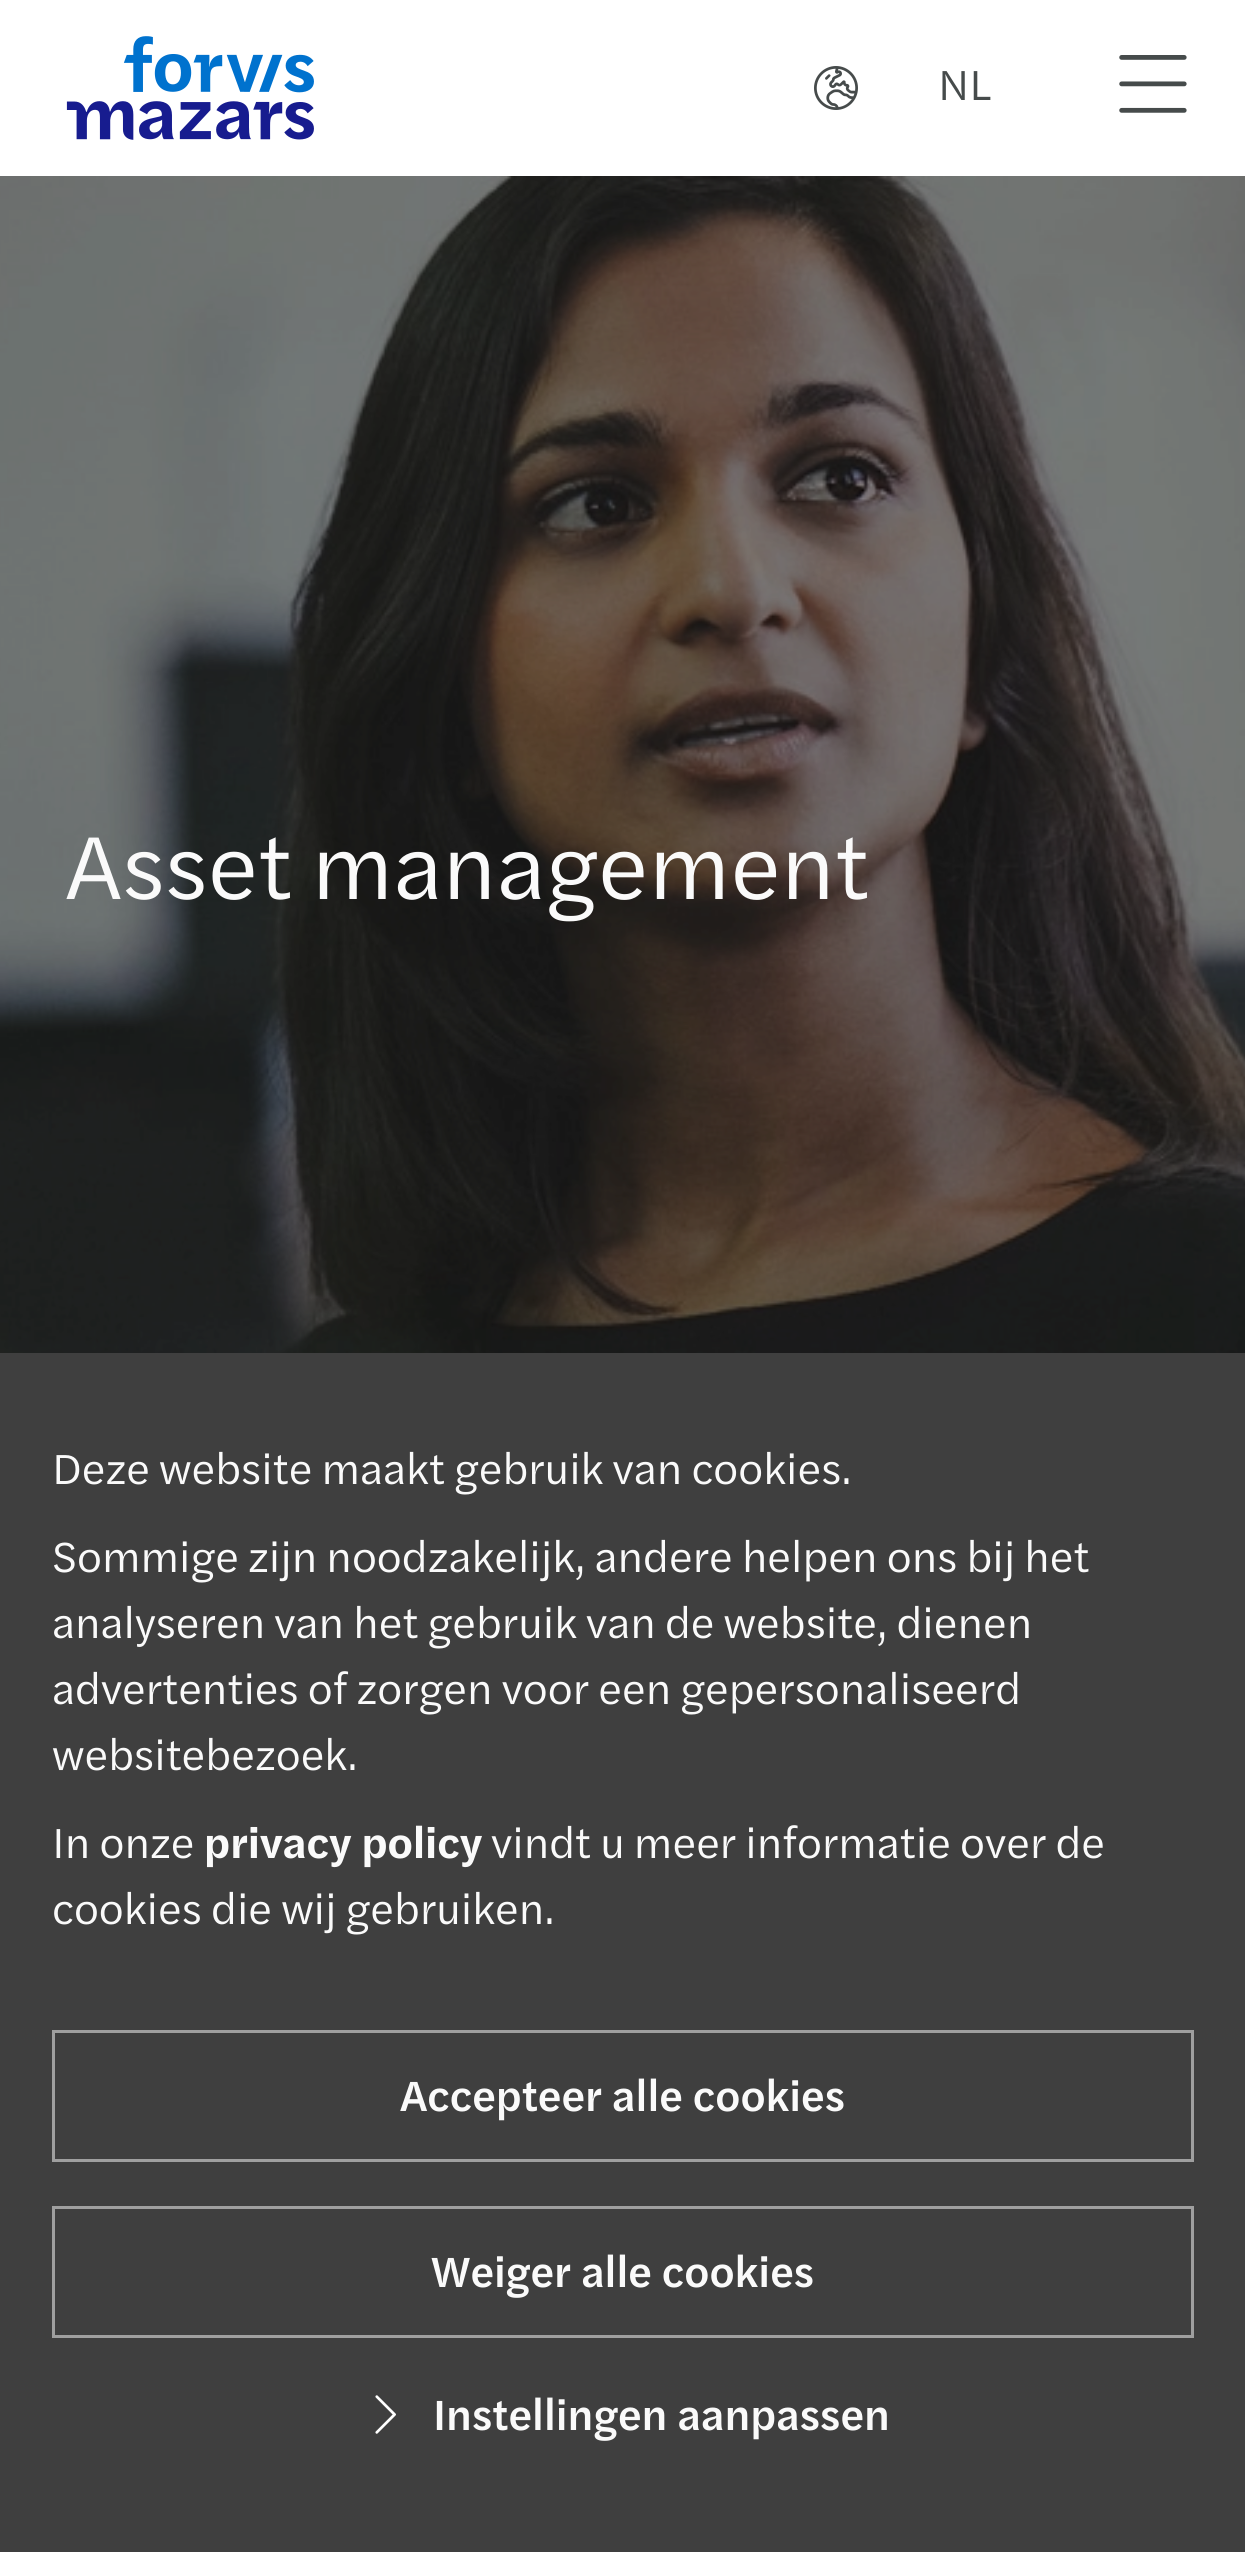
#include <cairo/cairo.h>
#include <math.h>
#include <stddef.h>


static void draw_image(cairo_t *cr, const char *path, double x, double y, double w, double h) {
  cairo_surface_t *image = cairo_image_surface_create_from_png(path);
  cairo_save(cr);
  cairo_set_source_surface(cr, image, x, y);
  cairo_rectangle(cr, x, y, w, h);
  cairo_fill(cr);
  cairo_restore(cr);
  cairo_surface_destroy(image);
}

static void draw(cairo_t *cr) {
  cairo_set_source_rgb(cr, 1, 1, 1);
  cairo_paint(cr);
  draw_image(cr, "images/1.png", 66, 36, 248, 104);
  draw_image(cr, "images/2.png", 814, 66, 44, 44);
  draw_image(cr, "images/3.png", 1119, 55, 68, 58);
  draw_image(cr, "images/4.png", 0, 176, 1245, 1177);
  cairo_set_source_rgb(cr, 63 / 255.0, 63 / 255.0, 63 / 255.0);
  cairo_rectangle(cr, 0, 1353, 1245, 1199);
  cairo_fill(cr);
  cairo_rectangle(cr, 53.5, 2031.5, 1139, 129);
  cairo_set_source_rgb(cr, 159 / 255.0, 159 / 255.0, 159 / 255.0);
  cairo_set_line_width(cr, 3);
  cairo_stroke(cr);
  cairo_rectangle(cr, 53.5, 2207.5, 1139, 129);
  cairo_stroke(cr);
  draw_image(cr, "images/5.png", 375, 2395, 21, 39);
  cairo_select_font_face(cr, "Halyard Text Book", CAIRO_FONT_SLANT_NORMAL, CAIRO_FONT_WEIGHT_NORMAL);
  cairo_set_font_size(cr, 44);
  cairo_set_source_rgb(cr, 70 / 255.0, 75 / 255.0, 75 / 255.0);
  cairo_move_to(cr, 938, 100);
  cairo_show_text(cr, "NL");
  cairo_set_font_size(cr, 93.5);
  cairo_set_source_rgb(cr, 250 / 255.0, 250 / 255.0, 250 / 255.0);
  cairo_move_to(cr, 65, 899);
  cairo_show_text(cr, "Asset management");
  cairo_set_font_size(cr, 44);
  cairo_move_to(cr, 52, 1484);
  cairo_show_text(cr, "Deze website maakt gebruik van cookies.");
  cairo_move_to(cr, 52, 1572);
  cairo_show_text(cr, "Sommige zijn noodzakelijk, andere helpen ons bij het");
  cairo_move_to(cr, 52, 1638);
  cairo_show_text(cr, "analyseren van het gebruik van de website, dienen");
  cairo_move_to(cr, 52, 1704);
  cairo_show_text(cr, "advertenties of zorgen voor een gepersonaliseerd");
  cairo_move_to(cr, 52, 1770);
  cairo_show_text(cr, "websitebezoek.");
  cairo_move_to(cr, 52, 1858);
  cairo_show_text(cr, "In onze");
  cairo_select_font_face(cr, "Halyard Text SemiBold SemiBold", CAIRO_FONT_SLANT_NORMAL, CAIRO_FONT_WEIGHT_NORMAL);
  cairo_move_to(cr, 204, 1858);
  cairo_show_text(cr, "privacy policy");
  cairo_select_font_face(cr, "Halyard Text Book", CAIRO_FONT_SLANT_NORMAL, CAIRO_FONT_WEIGHT_NORMAL);
  cairo_move_to(cr, 491, 1858);
  cairo_show_text(cr, "vindt u meer informatie over de");
  cairo_move_to(cr, 52, 1924);
  cairo_show_text(cr, "cookies die wij gebruiken.");
  cairo_select_font_face(cr, "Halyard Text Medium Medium", CAIRO_FONT_SLANT_NORMAL, CAIRO_FONT_WEIGHT_NORMAL);
  cairo_move_to(cr, 400, 2111);
  cairo_show_text(cr, "Accepteer alle cookies");
  cairo_move_to(cr, 431, 2287);
  cairo_show_text(cr, "Weiger alle cookies");
  cairo_move_to(cr, 433, 2430);
  cairo_show_text(cr, "Instellingen aanpassen");
}

int main(void) {
  cairo_surface_t *surface = cairo_image_surface_create(CAIRO_FORMAT_RGB24, 1245, 2552);
  cairo_t *cr = cairo_create(surface);
  cairo_font_options_t *options = cairo_font_options_create();
  cairo_font_options_set_hint_metrics(options, CAIRO_HINT_METRICS_OFF);
  cairo_font_options_set_hint_style(options, CAIRO_HINT_STYLE_NONE);
  cairo_set_font_options(cr, options);
  cairo_set_miter_limit(cr, 4);
  draw(cr);
  cairo_surface_write_to_png(surface, "out.png");
  cairo_font_options_destroy(options);
  cairo_destroy(cr);
  cairo_surface_destroy(surface);
  return 0;
}
